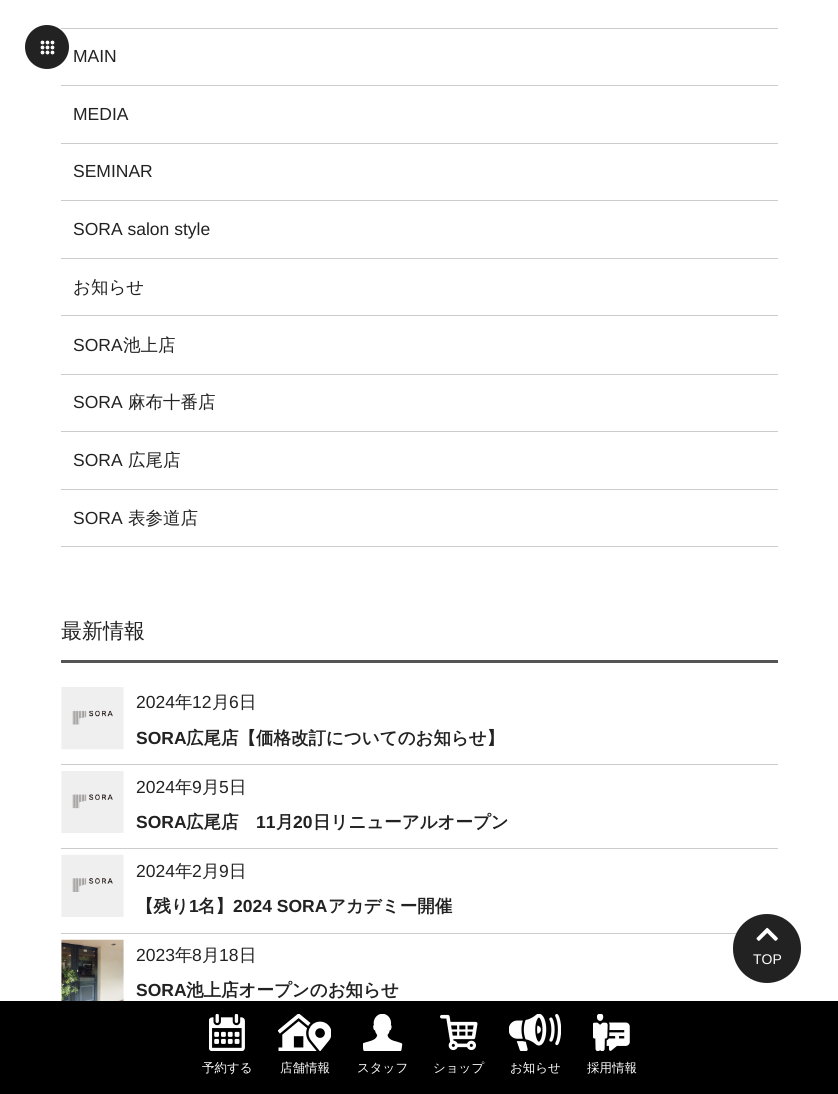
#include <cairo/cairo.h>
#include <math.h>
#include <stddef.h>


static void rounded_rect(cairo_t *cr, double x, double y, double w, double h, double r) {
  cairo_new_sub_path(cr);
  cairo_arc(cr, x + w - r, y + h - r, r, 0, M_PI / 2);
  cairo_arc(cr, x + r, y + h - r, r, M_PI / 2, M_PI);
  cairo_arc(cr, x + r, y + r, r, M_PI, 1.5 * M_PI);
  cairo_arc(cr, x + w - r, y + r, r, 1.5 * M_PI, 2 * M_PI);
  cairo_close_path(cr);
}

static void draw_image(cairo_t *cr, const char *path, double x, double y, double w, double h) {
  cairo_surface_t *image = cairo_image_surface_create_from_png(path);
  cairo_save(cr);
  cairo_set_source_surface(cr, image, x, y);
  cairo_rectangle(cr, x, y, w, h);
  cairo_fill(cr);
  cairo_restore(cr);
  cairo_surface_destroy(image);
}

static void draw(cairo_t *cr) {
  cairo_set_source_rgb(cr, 1, 1, 1);
  cairo_paint(cr);
  cairo_set_source_rgb(cr, 204 / 255.0, 204 / 255.0, 204 / 255.0);
  cairo_rectangle(cr, 61, 28, 717, 1);
  cairo_fill(cr);
  cairo_set_source_rgb(cr, 34 / 255.0, 34 / 255.0, 34 / 255.0);
  cairo_arc(cr, 47, 47, 22, 0, 2 * M_PI);
  cairo_fill(cr);
  draw_image(cr, "images/1.png", 40, 40, 15, 15);
  cairo_set_source_rgb(cr, 204 / 255.0, 204 / 255.0, 204 / 255.0);
  cairo_rectangle(cr, 61, 85, 717, 1);
  cairo_fill(cr);
  cairo_rectangle(cr, 61, 143, 717, 1);
  cairo_fill(cr);
  cairo_rectangle(cr, 61, 200, 717, 1);
  cairo_fill(cr);
  cairo_rectangle(cr, 61, 258, 717, 1);
  cairo_fill(cr);
  cairo_rectangle(cr, 61, 315, 717, 1);
  cairo_fill(cr);
  cairo_rectangle(cr, 61, 374, 717, 1);
  cairo_fill(cr);
  cairo_rectangle(cr, 61, 431, 717, 1);
  cairo_fill(cr);
  cairo_rectangle(cr, 61, 489, 717, 1);
  cairo_fill(cr);
  cairo_rectangle(cr, 61, 546, 717, 1);
  cairo_fill(cr);
  cairo_set_source_rgb(cr, 85 / 255.0, 85 / 255.0, 85 / 255.0);
  cairo_rectangle(cr, 61, 660, 717, 3);
  cairo_fill(cr);
  cairo_set_source_rgb(cr, 204 / 255.0, 204 / 255.0, 204 / 255.0);
  cairo_rectangle(cr, 61, 764, 717, 1);
  cairo_fill(cr);
  draw_image(cr, "images/2.png", 61, 687, 63, 63);
  cairo_rectangle(cr, 61, 848, 717, 1);
  cairo_fill(cr);
  draw_image(cr, "images/3.png", 61, 771, 63, 62);
  cairo_rectangle(cr, 61, 933, 676, 1);
  cairo_fill(cr);
  draw_image(cr, "images/4.png", 61, 854, 63, 63);
  draw_image(cr, "images/5.png", 61, 939, 63, 62);
  cairo_set_source_rgb(cr, 34 / 255.0, 34 / 255.0, 34 / 255.0);
  rounded_rect(cr, 733, 914, 68, 69, 34);
  cairo_fill(cr);
  draw_image(cr, "images/6.png", 756, 927, 22, 14);
  cairo_set_source_rgb(cr, 0, 0, 0);
  cairo_rectangle(cr, 0, 1001, 838, 93);
  cairo_fill(cr);
  draw_image(cr, "images/7.png", 209, 1014, 36, 37);
  draw_image(cr, "images/8.png", 278, 1014, 53, 37);
  draw_image(cr, "images/9.png", 363, 1014, 40, 37);
  draw_image(cr, "images/10.png", 440, 1014, 38, 37);
  draw_image(cr, "images/11.png", 509, 1014, 52, 37);
  draw_image(cr, "images/12.png", 593, 1014, 37, 37);
  cairo_select_font_face(cr, "Liberation Sans", CAIRO_FONT_SLANT_NORMAL, CAIRO_FONT_WEIGHT_NORMAL);
  cairo_set_font_size(cr, 17.5);
  cairo_set_source_rgb(cr, 34 / 255.0, 34 / 255.0, 34 / 255.0);
  cairo_move_to(cr, 73, 62);
  cairo_show_text(cr, "MAIN");
  cairo_move_to(cr, 73, 120);
  cairo_show_text(cr, "MEDIA");
  cairo_move_to(cr, 73, 177);
  cairo_show_text(cr, "SEMINAR");
  cairo_move_to(cr, 73, 235);
  cairo_show_text(cr, "SORA salon style");
  cairo_select_font_face(cr, "WenQuanYi Zen Hei Medium", CAIRO_FONT_SLANT_NORMAL, CAIRO_FONT_WEIGHT_NORMAL);
  cairo_move_to(cr, 73, 293);
  cairo_show_text(cr, "お知らせ");
  cairo_select_font_face(cr, "Liberation Sans", CAIRO_FONT_SLANT_NORMAL, CAIRO_FONT_WEIGHT_NORMAL);
  cairo_move_to(cr, 73, 351);
  cairo_show_text(cr, "SORA");
  cairo_select_font_face(cr, "WenQuanYi Zen Hei Medium", CAIRO_FONT_SLANT_NORMAL, CAIRO_FONT_WEIGHT_NORMAL);
  cairo_move_to(cr, 123, 351);
  cairo_show_text(cr, "池上店");
  cairo_select_font_face(cr, "Liberation Sans", CAIRO_FONT_SLANT_NORMAL, CAIRO_FONT_WEIGHT_NORMAL);
  cairo_move_to(cr, 73, 408);
  cairo_show_text(cr, "SORA");
  cairo_select_font_face(cr, "WenQuanYi Zen Hei Medium", CAIRO_FONT_SLANT_NORMAL, CAIRO_FONT_WEIGHT_NORMAL);
  cairo_move_to(cr, 128, 408);
  cairo_show_text(cr, "麻布十番店");
  cairo_select_font_face(cr, "Liberation Sans", CAIRO_FONT_SLANT_NORMAL, CAIRO_FONT_WEIGHT_NORMAL);
  cairo_move_to(cr, 73, 466);
  cairo_show_text(cr, "SORA");
  cairo_select_font_face(cr, "WenQuanYi Zen Hei Medium", CAIRO_FONT_SLANT_NORMAL, CAIRO_FONT_WEIGHT_NORMAL);
  cairo_move_to(cr, 128, 466);
  cairo_show_text(cr, "広尾店");
  cairo_select_font_face(cr, "Liberation Sans", CAIRO_FONT_SLANT_NORMAL, CAIRO_FONT_WEIGHT_NORMAL);
  cairo_move_to(cr, 73, 524);
  cairo_show_text(cr, "SORA");
  cairo_select_font_face(cr, "WenQuanYi Zen Hei Medium", CAIRO_FONT_SLANT_NORMAL, CAIRO_FONT_WEIGHT_NORMAL);
  cairo_move_to(cr, 128, 524);
  cairo_show_text(cr, "表参道店");
  cairo_set_font_size(cr, 21);
  cairo_move_to(cr, 61, 638);
  cairo_show_text(cr, "最新情報");
  cairo_select_font_face(cr, "Liberation Sans", CAIRO_FONT_SLANT_NORMAL, CAIRO_FONT_WEIGHT_NORMAL);
  cairo_set_font_size(cr, 17.5);
  cairo_move_to(cr, 136, 708);
  cairo_show_text(cr, "2024");
  cairo_select_font_face(cr, "WenQuanYi Zen Hei Medium", CAIRO_FONT_SLANT_NORMAL, CAIRO_FONT_WEIGHT_NORMAL);
  cairo_move_to(cr, 175, 708);
  cairo_show_text(cr, "年");
  cairo_select_font_face(cr, "Liberation Sans", CAIRO_FONT_SLANT_NORMAL, CAIRO_FONT_WEIGHT_NORMAL);
  cairo_move_to(cr, 192, 708);
  cairo_show_text(cr, "12");
  cairo_select_font_face(cr, "WenQuanYi Zen Hei Medium", CAIRO_FONT_SLANT_NORMAL, CAIRO_FONT_WEIGHT_NORMAL);
  cairo_move_to(cr, 212, 708);
  cairo_show_text(cr, "月");
  cairo_select_font_face(cr, "Liberation Sans", CAIRO_FONT_SLANT_NORMAL, CAIRO_FONT_WEIGHT_NORMAL);
  cairo_move_to(cr, 229, 708);
  cairo_show_text(cr, "6");
  cairo_select_font_face(cr, "WenQuanYi Zen Hei Medium", CAIRO_FONT_SLANT_NORMAL, CAIRO_FONT_WEIGHT_NORMAL);
  cairo_move_to(cr, 239, 708);
  cairo_show_text(cr, "日");
  cairo_select_font_face(cr, "Liberation Sans", CAIRO_FONT_SLANT_NORMAL, CAIRO_FONT_WEIGHT_BOLD);
  cairo_move_to(cr, 136, 744);
  cairo_show_text(cr, "SORA");
  cairo_select_font_face(cr, "WenQuanYi Zen Hei", CAIRO_FONT_SLANT_NORMAL, CAIRO_FONT_WEIGHT_BOLD);
  cairo_move_to(cr, 186, 744);
  cairo_show_text(cr, "広尾店【価格改訂についてのお知らせ】");
  cairo_select_font_face(cr, "Liberation Sans", CAIRO_FONT_SLANT_NORMAL, CAIRO_FONT_WEIGHT_NORMAL);
  cairo_move_to(cr, 136, 793);
  cairo_show_text(cr, "2024");
  cairo_select_font_face(cr, "WenQuanYi Zen Hei Medium", CAIRO_FONT_SLANT_NORMAL, CAIRO_FONT_WEIGHT_NORMAL);
  cairo_move_to(cr, 175, 793);
  cairo_show_text(cr, "年");
  cairo_select_font_face(cr, "Liberation Sans", CAIRO_FONT_SLANT_NORMAL, CAIRO_FONT_WEIGHT_NORMAL);
  cairo_move_to(cr, 192, 793);
  cairo_show_text(cr, "9");
  cairo_select_font_face(cr, "WenQuanYi Zen Hei Medium", CAIRO_FONT_SLANT_NORMAL, CAIRO_FONT_WEIGHT_NORMAL);
  cairo_move_to(cr, 202, 793);
  cairo_show_text(cr, "月");
  cairo_select_font_face(cr, "Liberation Sans", CAIRO_FONT_SLANT_NORMAL, CAIRO_FONT_WEIGHT_NORMAL);
  cairo_move_to(cr, 219, 793);
  cairo_show_text(cr, "5");
  cairo_select_font_face(cr, "WenQuanYi Zen Hei Medium", CAIRO_FONT_SLANT_NORMAL, CAIRO_FONT_WEIGHT_NORMAL);
  cairo_move_to(cr, 229, 793);
  cairo_show_text(cr, "日");
  cairo_select_font_face(cr, "Liberation Sans", CAIRO_FONT_SLANT_NORMAL, CAIRO_FONT_WEIGHT_BOLD);
  cairo_move_to(cr, 136, 828);
  cairo_show_text(cr, "SORA");
  cairo_select_font_face(cr, "WenQuanYi Zen Hei", CAIRO_FONT_SLANT_NORMAL, CAIRO_FONT_WEIGHT_BOLD);
  cairo_move_to(cr, 186, 828);
  cairo_show_text(cr, "広尾店");
  cairo_select_font_face(cr, "Liberation Sans", CAIRO_FONT_SLANT_NORMAL, CAIRO_FONT_WEIGHT_BOLD);
  cairo_move_to(cr, 256, 828);
  cairo_show_text(cr, "11");
  cairo_select_font_face(cr, "WenQuanYi Zen Hei", CAIRO_FONT_SLANT_NORMAL, CAIRO_FONT_WEIGHT_BOLD);
  cairo_move_to(cr, 276, 828);
  cairo_show_text(cr, "月");
  cairo_select_font_face(cr, "Liberation Sans", CAIRO_FONT_SLANT_NORMAL, CAIRO_FONT_WEIGHT_BOLD);
  cairo_move_to(cr, 293, 828);
  cairo_show_text(cr, "20");
  cairo_select_font_face(cr, "WenQuanYi Zen Hei", CAIRO_FONT_SLANT_NORMAL, CAIRO_FONT_WEIGHT_BOLD);
  cairo_move_to(cr, 313, 828);
  cairo_show_text(cr, "日リニューアルオープン");
  cairo_select_font_face(cr, "Liberation Sans", CAIRO_FONT_SLANT_NORMAL, CAIRO_FONT_WEIGHT_NORMAL);
  cairo_move_to(cr, 136, 877);
  cairo_show_text(cr, "2024");
  cairo_select_font_face(cr, "WenQuanYi Zen Hei Medium", CAIRO_FONT_SLANT_NORMAL, CAIRO_FONT_WEIGHT_NORMAL);
  cairo_move_to(cr, 175, 877);
  cairo_show_text(cr, "年");
  cairo_select_font_face(cr, "Liberation Sans", CAIRO_FONT_SLANT_NORMAL, CAIRO_FONT_WEIGHT_NORMAL);
  cairo_move_to(cr, 192, 877);
  cairo_show_text(cr, "2");
  cairo_select_font_face(cr, "WenQuanYi Zen Hei Medium", CAIRO_FONT_SLANT_NORMAL, CAIRO_FONT_WEIGHT_NORMAL);
  cairo_move_to(cr, 202, 877);
  cairo_show_text(cr, "月");
  cairo_select_font_face(cr, "Liberation Sans", CAIRO_FONT_SLANT_NORMAL, CAIRO_FONT_WEIGHT_NORMAL);
  cairo_move_to(cr, 219, 877);
  cairo_show_text(cr, "9");
  cairo_select_font_face(cr, "WenQuanYi Zen Hei Medium", CAIRO_FONT_SLANT_NORMAL, CAIRO_FONT_WEIGHT_NORMAL);
  cairo_move_to(cr, 229, 877);
  cairo_show_text(cr, "日");
  cairo_select_font_face(cr, "WenQuanYi Zen Hei", CAIRO_FONT_SLANT_NORMAL, CAIRO_FONT_WEIGHT_BOLD);
  cairo_move_to(cr, 136, 912);
  cairo_show_text(cr, "【残り");
  cairo_select_font_face(cr, "Liberation Sans", CAIRO_FONT_SLANT_NORMAL, CAIRO_FONT_WEIGHT_BOLD);
  cairo_move_to(cr, 189, 912);
  cairo_show_text(cr, "1");
  cairo_select_font_face(cr, "WenQuanYi Zen Hei", CAIRO_FONT_SLANT_NORMAL, CAIRO_FONT_WEIGHT_BOLD);
  cairo_move_to(cr, 198, 912);
  cairo_show_text(cr, "名】");
  cairo_select_font_face(cr, "Liberation Sans", CAIRO_FONT_SLANT_NORMAL, CAIRO_FONT_WEIGHT_BOLD);
  cairo_move_to(cr, 233, 912);
  cairo_show_text(cr, "2024 SORA");
  cairo_select_font_face(cr, "WenQuanYi Zen Hei", CAIRO_FONT_SLANT_NORMAL, CAIRO_FONT_WEIGHT_BOLD);
  cairo_move_to(cr, 328, 912);
  cairo_show_text(cr, "アカデミー開催");
  cairo_select_font_face(cr, "Liberation Sans", CAIRO_FONT_SLANT_NORMAL, CAIRO_FONT_WEIGHT_NORMAL);
  cairo_move_to(cr, 136, 961);
  cairo_show_text(cr, "2023");
  cairo_select_font_face(cr, "WenQuanYi Zen Hei Medium", CAIRO_FONT_SLANT_NORMAL, CAIRO_FONT_WEIGHT_NORMAL);
  cairo_move_to(cr, 175, 961);
  cairo_show_text(cr, "年");
  cairo_select_font_face(cr, "Liberation Sans", CAIRO_FONT_SLANT_NORMAL, CAIRO_FONT_WEIGHT_NORMAL);
  cairo_move_to(cr, 192, 961);
  cairo_show_text(cr, "8");
  cairo_select_font_face(cr, "WenQuanYi Zen Hei Medium", CAIRO_FONT_SLANT_NORMAL, CAIRO_FONT_WEIGHT_NORMAL);
  cairo_move_to(cr, 202, 961);
  cairo_show_text(cr, "月");
  cairo_select_font_face(cr, "Liberation Sans", CAIRO_FONT_SLANT_NORMAL, CAIRO_FONT_WEIGHT_NORMAL);
  cairo_move_to(cr, 219, 961);
  cairo_show_text(cr, "18");
  cairo_select_font_face(cr, "WenQuanYi Zen Hei Medium", CAIRO_FONT_SLANT_NORMAL, CAIRO_FONT_WEIGHT_NORMAL);
  cairo_move_to(cr, 239, 961);
  cairo_show_text(cr, "日");
  cairo_select_font_face(cr, "Liberation Sans", CAIRO_FONT_SLANT_NORMAL, CAIRO_FONT_WEIGHT_BOLD);
  cairo_move_to(cr, 136, 996);
  cairo_show_text(cr, "SORA");
  cairo_select_font_face(cr, "WenQuanYi Zen Hei", CAIRO_FONT_SLANT_NORMAL, CAIRO_FONT_WEIGHT_BOLD);
  cairo_move_to(cr, 186, 996);
  cairo_show_text(cr, "池上店オープンのお知らせ");
  cairo_select_font_face(cr, "Liberation Sans", CAIRO_FONT_SLANT_NORMAL, CAIRO_FONT_WEIGHT_NORMAL);
  cairo_set_font_size(cr, 14);
  cairo_set_source_rgb(cr, 1, 1, 1);
  cairo_move_to(cr, 753, 964);
  cairo_show_text(cr, "TOP");
  cairo_select_font_face(cr, "WenQuanYi Zen Hei Medium", CAIRO_FONT_SLANT_NORMAL, CAIRO_FONT_WEIGHT_NORMAL);
  cairo_set_font_size(cr, 12.5);
  cairo_move_to(cr, 202, 1072);
  cairo_show_text(cr, "予約する");
  cairo_move_to(cr, 280, 1072);
  cairo_show_text(cr, "店舗情報");
  cairo_move_to(cr, 357, 1072);
  cairo_show_text(cr, "スタッフ");
  cairo_move_to(cr, 433, 1072);
  cairo_show_text(cr, "ショップ");
  cairo_move_to(cr, 510, 1072);
  cairo_show_text(cr, "お知らせ");
  cairo_move_to(cr, 587, 1072);
  cairo_show_text(cr, "採用情報");
}

int main(void) {
  cairo_surface_t *surface = cairo_image_surface_create(CAIRO_FORMAT_RGB24, 838, 1094);
  cairo_t *cr = cairo_create(surface);
  cairo_font_options_t *options = cairo_font_options_create();
  cairo_font_options_set_hint_metrics(options, CAIRO_HINT_METRICS_OFF);
  cairo_font_options_set_hint_style(options, CAIRO_HINT_STYLE_NONE);
  cairo_set_font_options(cr, options);
  cairo_set_miter_limit(cr, 4);
  draw(cr);
  cairo_surface_write_to_png(surface, "out.png");
  cairo_font_options_destroy(options);
  cairo_destroy(cr);
  cairo_surface_destroy(surface);
  return 0;
}
